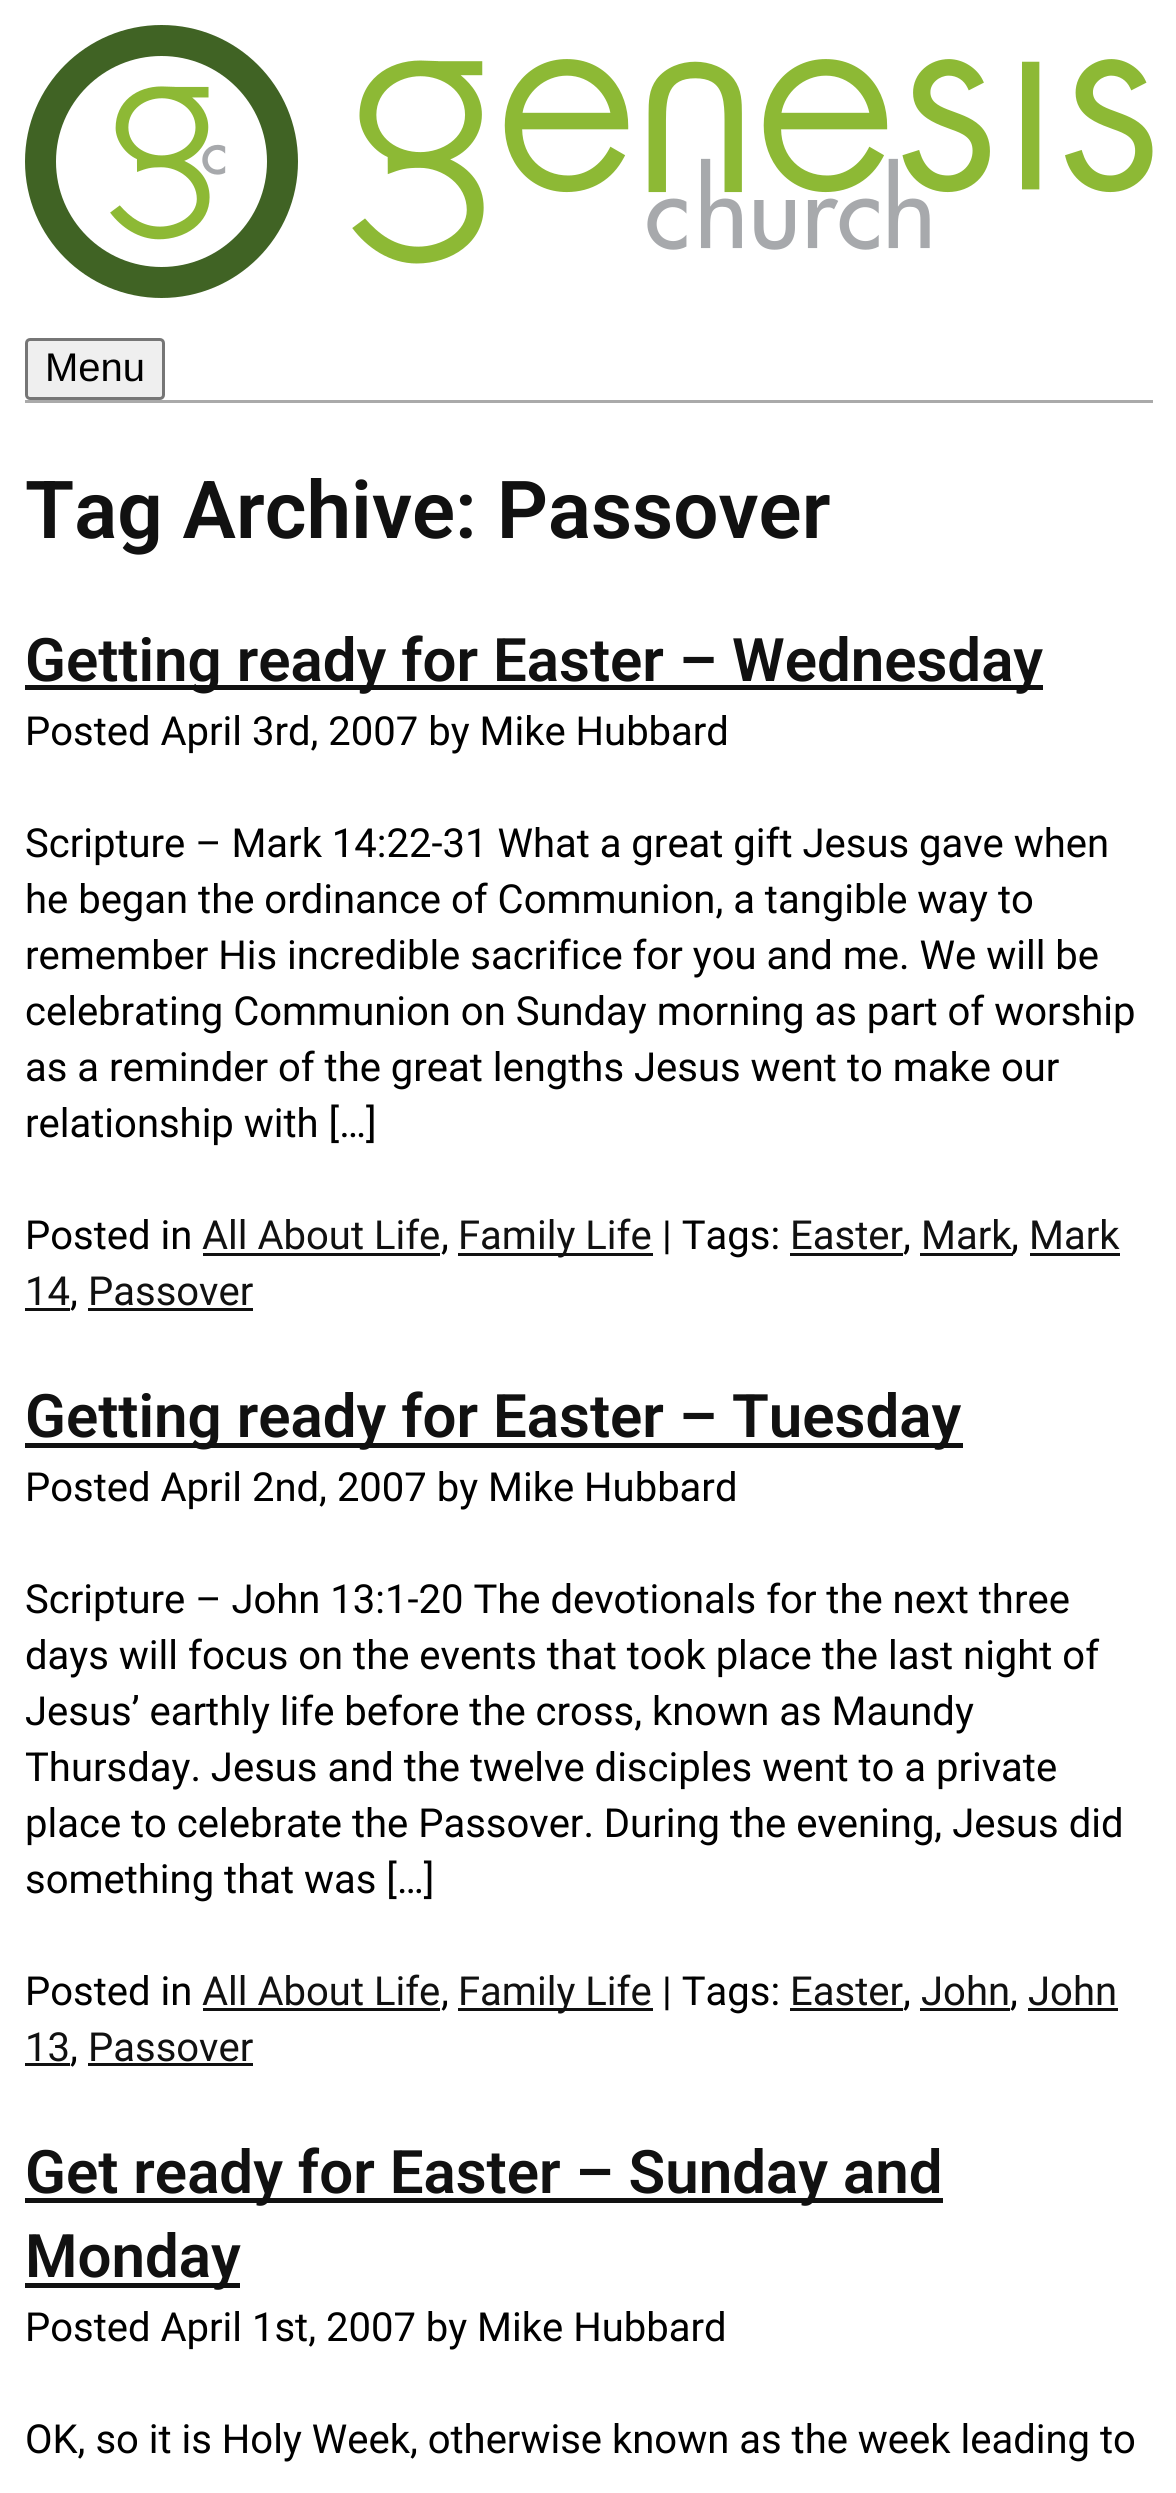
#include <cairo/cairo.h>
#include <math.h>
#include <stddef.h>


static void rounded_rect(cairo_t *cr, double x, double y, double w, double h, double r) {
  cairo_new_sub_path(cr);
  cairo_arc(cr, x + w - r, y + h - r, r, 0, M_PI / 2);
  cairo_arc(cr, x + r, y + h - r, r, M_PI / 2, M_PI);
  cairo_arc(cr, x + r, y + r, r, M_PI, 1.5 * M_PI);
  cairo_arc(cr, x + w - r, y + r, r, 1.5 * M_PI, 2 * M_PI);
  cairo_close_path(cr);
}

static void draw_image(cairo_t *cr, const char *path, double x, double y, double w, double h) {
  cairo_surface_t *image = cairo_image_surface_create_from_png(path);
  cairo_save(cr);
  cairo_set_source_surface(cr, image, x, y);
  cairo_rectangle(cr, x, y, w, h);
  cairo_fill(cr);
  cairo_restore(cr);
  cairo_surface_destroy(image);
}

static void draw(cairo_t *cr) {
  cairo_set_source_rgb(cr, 1, 1, 1);
  cairo_paint(cr);
  draw_image(cr, "images/1.png", 25, 25, 1128, 273);
  cairo_set_source_rgb(cr, 239 / 255.0, 239 / 255.0, 239 / 255.0);
  rounded_rect(cr, 26.5, 339.5, 137, 59, 3.5);
  cairo_fill_preserve(cr);
  cairo_set_source_rgb(cr, 118 / 255.0, 118 / 255.0, 118 / 255.0);
  cairo_set_line_width(cr, 3);
  cairo_stroke(cr);
  cairo_set_source_rgb(cr, 170 / 255.0, 170 / 255.0, 170 / 255.0);
  cairo_rectangle(cr, 25, 400, 1128, 3);
  cairo_fill(cr);
  cairo_set_source_rgb(cr, 17 / 255.0, 17 / 255.0, 17 / 255.0);
  cairo_rectangle(cr, 25, 685, 1018, 5);
  cairo_fill(cr);
  cairo_rectangle(cr, 203, 1253, 237, 3);
  cairo_fill(cr);
  cairo_rectangle(cr, 458, 1253, 195, 3);
  cairo_fill(cr);
  cairo_rectangle(cr, 790, 1253, 113, 3);
  cairo_fill(cr);
  cairo_rectangle(cr, 920, 1253, 93, 3);
  cairo_fill(cr);
  cairo_rectangle(cr, 1030, 1253, 90, 3);
  cairo_fill(cr);
  cairo_rectangle(cr, 25, 1308, 45, 3);
  cairo_fill(cr);
  cairo_rectangle(cr, 88, 1308, 165, 3);
  cairo_fill(cr);
  cairo_rectangle(cr, 25, 1443, 938, 5);
  cairo_fill(cr);
  cairo_rectangle(cr, 203, 2008, 237, 3);
  cairo_fill(cr);
  cairo_rectangle(cr, 458, 2008, 195, 3);
  cairo_fill(cr);
  cairo_rectangle(cr, 790, 2008, 113, 3);
  cairo_fill(cr);
  cairo_rectangle(cr, 920, 2008, 90, 3);
  cairo_fill(cr);
  cairo_rectangle(cr, 1028, 2008, 90, 3);
  cairo_fill(cr);
  cairo_rectangle(cr, 25, 2063, 45, 3);
  cairo_fill(cr);
  cairo_rectangle(cr, 88, 2063, 165, 3);
  cairo_fill(cr);
  cairo_rectangle(cr, 25, 2198, 918, 5);
  cairo_fill(cr);
  cairo_rectangle(cr, 25, 2283, 215, 5);
  cairo_fill(cr);
  cairo_select_font_face(cr, "Liberation Sans", CAIRO_FONT_SLANT_NORMAL, CAIRO_FONT_WEIGHT_NORMAL);
  cairo_set_font_size(cr, 40);
  cairo_set_source_rgb(cr, 0, 0, 0);
  cairo_move_to(cr, 45, 381);
  cairo_show_text(cr, "Menu");
  cairo_select_font_face(cr, "Roboto SemiBold", CAIRO_FONT_SLANT_NORMAL, CAIRO_FONT_WEIGHT_NORMAL);
  cairo_set_font_size(cr, 80);
  cairo_set_source_rgb(cr, 17 / 255.0, 17 / 255.0, 17 / 255.0);
  cairo_move_to(cr, 25, 538);
  cairo_show_text(cr, "Tag Archive: Passover");
  cairo_set_font_size(cr, 60);
  cairo_move_to(cr, 25, 681);
  cairo_show_text(cr, "Getting ready for Easter – Wednesday");
  cairo_select_font_face(cr, "Roboto", CAIRO_FONT_SLANT_NORMAL, CAIRO_FONT_WEIGHT_NORMAL);
  cairo_set_font_size(cr, 40);
  cairo_set_source_rgb(cr, 0, 0, 0);
  cairo_move_to(cr, 25, 745);
  cairo_show_text(cr, "Posted April 3rd, 2007 by Mike Hubbard");
  cairo_move_to(cr, 25, 857);
  cairo_show_text(cr, "Scripture – Mark 14:22-31 What a great gift Jesus gave when");
  cairo_move_to(cr, 25, 913);
  cairo_show_text(cr, "he began the ordinance of Communion, a tangible way to");
  cairo_move_to(cr, 25, 969);
  cairo_show_text(cr, "remember His incredible sacrifice for you and me. We will be");
  cairo_move_to(cr, 25, 1025);
  cairo_show_text(cr, "celebrating Communion on Sunday morning as part of worship");
  cairo_move_to(cr, 25, 1081);
  cairo_show_text(cr, "as a reminder of the great lengths Jesus went to make our");
  cairo_move_to(cr, 25, 1137);
  cairo_show_text(cr, "relationship with […]");
  cairo_move_to(cr, 25, 1249);
  cairo_show_text(cr, "Posted in");
  cairo_set_source_rgb(cr, 17 / 255.0, 17 / 255.0, 17 / 255.0);
  cairo_move_to(cr, 202, 1249);
  cairo_show_text(cr, "All About Life");
  cairo_set_source_rgb(cr, 0, 0, 0);
  cairo_move_to(cr, 441, 1249);
  cairo_show_text(cr, ",");
  cairo_set_source_rgb(cr, 17 / 255.0, 17 / 255.0, 17 / 255.0);
  cairo_move_to(cr, 458, 1249);
  cairo_show_text(cr, "Family Life");
  cairo_set_source_rgb(cr, 0, 0, 0);
  cairo_move_to(cr, 662, 1249);
  cairo_show_text(cr, "| Tags:");
  cairo_set_source_rgb(cr, 17 / 255.0, 17 / 255.0, 17 / 255.0);
  cairo_move_to(cr, 790, 1249);
  cairo_show_text(cr, "Easter");
  cairo_set_source_rgb(cr, 0, 0, 0);
  cairo_move_to(cr, 903, 1249);
  cairo_show_text(cr, ",");
  cairo_set_source_rgb(cr, 17 / 255.0, 17 / 255.0, 17 / 255.0);
  cairo_move_to(cr, 921, 1249);
  cairo_show_text(cr, "Mark");
  cairo_set_source_rgb(cr, 0, 0, 0);
  cairo_move_to(cr, 1011, 1249);
  cairo_show_text(cr, ",");
  cairo_set_source_rgb(cr, 17 / 255.0, 17 / 255.0, 17 / 255.0);
  cairo_move_to(cr, 1029, 1249);
  cairo_show_text(cr, "Mark");
  cairo_move_to(cr, 25, 1305);
  cairo_show_text(cr, "14");
  cairo_set_source_rgb(cr, 0, 0, 0);
  cairo_move_to(cr, 70, 1305);
  cairo_show_text(cr, ",");
  cairo_set_source_rgb(cr, 17 / 255.0, 17 / 255.0, 17 / 255.0);
  cairo_move_to(cr, 88, 1305);
  cairo_show_text(cr, "Passover");
  cairo_select_font_face(cr, "Roboto SemiBold", CAIRO_FONT_SLANT_NORMAL, CAIRO_FONT_WEIGHT_NORMAL);
  cairo_set_font_size(cr, 60);
  cairo_move_to(cr, 25, 1437);
  cairo_show_text(cr, "Getting ready for Easter – Tuesday");
  cairo_select_font_face(cr, "Roboto", CAIRO_FONT_SLANT_NORMAL, CAIRO_FONT_WEIGHT_NORMAL);
  cairo_set_font_size(cr, 40);
  cairo_set_source_rgb(cr, 0, 0, 0);
  cairo_move_to(cr, 25, 1501);
  cairo_show_text(cr, "Posted April 2nd, 2007 by Mike Hubbard");
  cairo_move_to(cr, 25, 1613);
  cairo_show_text(cr, "Scripture – John 13:1-20 The devotionals for the next three");
  cairo_move_to(cr, 25, 1669);
  cairo_show_text(cr, "days will focus on the events that took place the last night of");
  cairo_move_to(cr, 25, 1725);
  cairo_show_text(cr, "Jesus’ earthly life before the cross, known as Maundy");
  cairo_move_to(cr, 25, 1781);
  cairo_show_text(cr, "Thursday. Jesus and the twelve disciples went to a private");
  cairo_move_to(cr, 25, 1837);
  cairo_show_text(cr, "place to celebrate the Passover. During the evening, Jesus did");
  cairo_move_to(cr, 25, 1893);
  cairo_show_text(cr, "something that was […]");
  cairo_move_to(cr, 25, 2005);
  cairo_show_text(cr, "Posted in");
  cairo_set_source_rgb(cr, 17 / 255.0, 17 / 255.0, 17 / 255.0);
  cairo_move_to(cr, 202, 2005);
  cairo_show_text(cr, "All About Life");
  cairo_set_source_rgb(cr, 0, 0, 0);
  cairo_move_to(cr, 441, 2005);
  cairo_show_text(cr, ",");
  cairo_set_source_rgb(cr, 17 / 255.0, 17 / 255.0, 17 / 255.0);
  cairo_move_to(cr, 458, 2005);
  cairo_show_text(cr, "Family Life");
  cairo_set_source_rgb(cr, 0, 0, 0);
  cairo_move_to(cr, 662, 2005);
  cairo_show_text(cr, "| Tags:");
  cairo_set_source_rgb(cr, 17 / 255.0, 17 / 255.0, 17 / 255.0);
  cairo_move_to(cr, 790, 2005);
  cairo_show_text(cr, "Easter");
  cairo_set_source_rgb(cr, 0, 0, 0);
  cairo_move_to(cr, 903, 2005);
  cairo_show_text(cr, ",");
  cairo_set_source_rgb(cr, 17 / 255.0, 17 / 255.0, 17 / 255.0);
  cairo_move_to(cr, 921, 2005);
  cairo_show_text(cr, "John");
  cairo_set_source_rgb(cr, 0, 0, 0);
  cairo_move_to(cr, 1010, 2005);
  cairo_show_text(cr, ",");
  cairo_set_source_rgb(cr, 17 / 255.0, 17 / 255.0, 17 / 255.0);
  cairo_move_to(cr, 1028, 2005);
  cairo_show_text(cr, "John");
  cairo_move_to(cr, 25, 2061);
  cairo_show_text(cr, "13");
  cairo_set_source_rgb(cr, 0, 0, 0);
  cairo_move_to(cr, 70, 2061);
  cairo_show_text(cr, ",");
  cairo_set_source_rgb(cr, 17 / 255.0, 17 / 255.0, 17 / 255.0);
  cairo_move_to(cr, 88, 2061);
  cairo_show_text(cr, "Passover");
  cairo_select_font_face(cr, "Roboto SemiBold", CAIRO_FONT_SLANT_NORMAL, CAIRO_FONT_WEIGHT_NORMAL);
  cairo_set_font_size(cr, 60);
  cairo_move_to(cr, 25, 2193);
  cairo_show_text(cr, "Get ready for Easter – Sunday and");
  cairo_move_to(cr, 25, 2277);
  cairo_show_text(cr, "Monday");
  cairo_select_font_face(cr, "Roboto", CAIRO_FONT_SLANT_NORMAL, CAIRO_FONT_WEIGHT_NORMAL);
  cairo_set_font_size(cr, 40);
  cairo_set_source_rgb(cr, 0, 0, 0);
  cairo_move_to(cr, 25, 2341);
  cairo_show_text(cr, "Posted April 1st, 2007 by Mike Hubbard");
  cairo_move_to(cr, 25, 2453);
  cairo_show_text(cr, "OK, so it is Holy Week, otherwise known as the week leading to");
}

int main(void) {
  cairo_surface_t *surface = cairo_image_surface_create(CAIRO_FORMAT_RGB24, 1176, 2493);
  cairo_t *cr = cairo_create(surface);
  cairo_font_options_t *options = cairo_font_options_create();
  cairo_font_options_set_hint_metrics(options, CAIRO_HINT_METRICS_OFF);
  cairo_font_options_set_hint_style(options, CAIRO_HINT_STYLE_NONE);
  cairo_set_font_options(cr, options);
  cairo_set_miter_limit(cr, 4);
  draw(cr);
  cairo_surface_write_to_png(surface, "out.png");
  cairo_font_options_destroy(options);
  cairo_destroy(cr);
  cairo_surface_destroy(surface);
  return 0;
}
